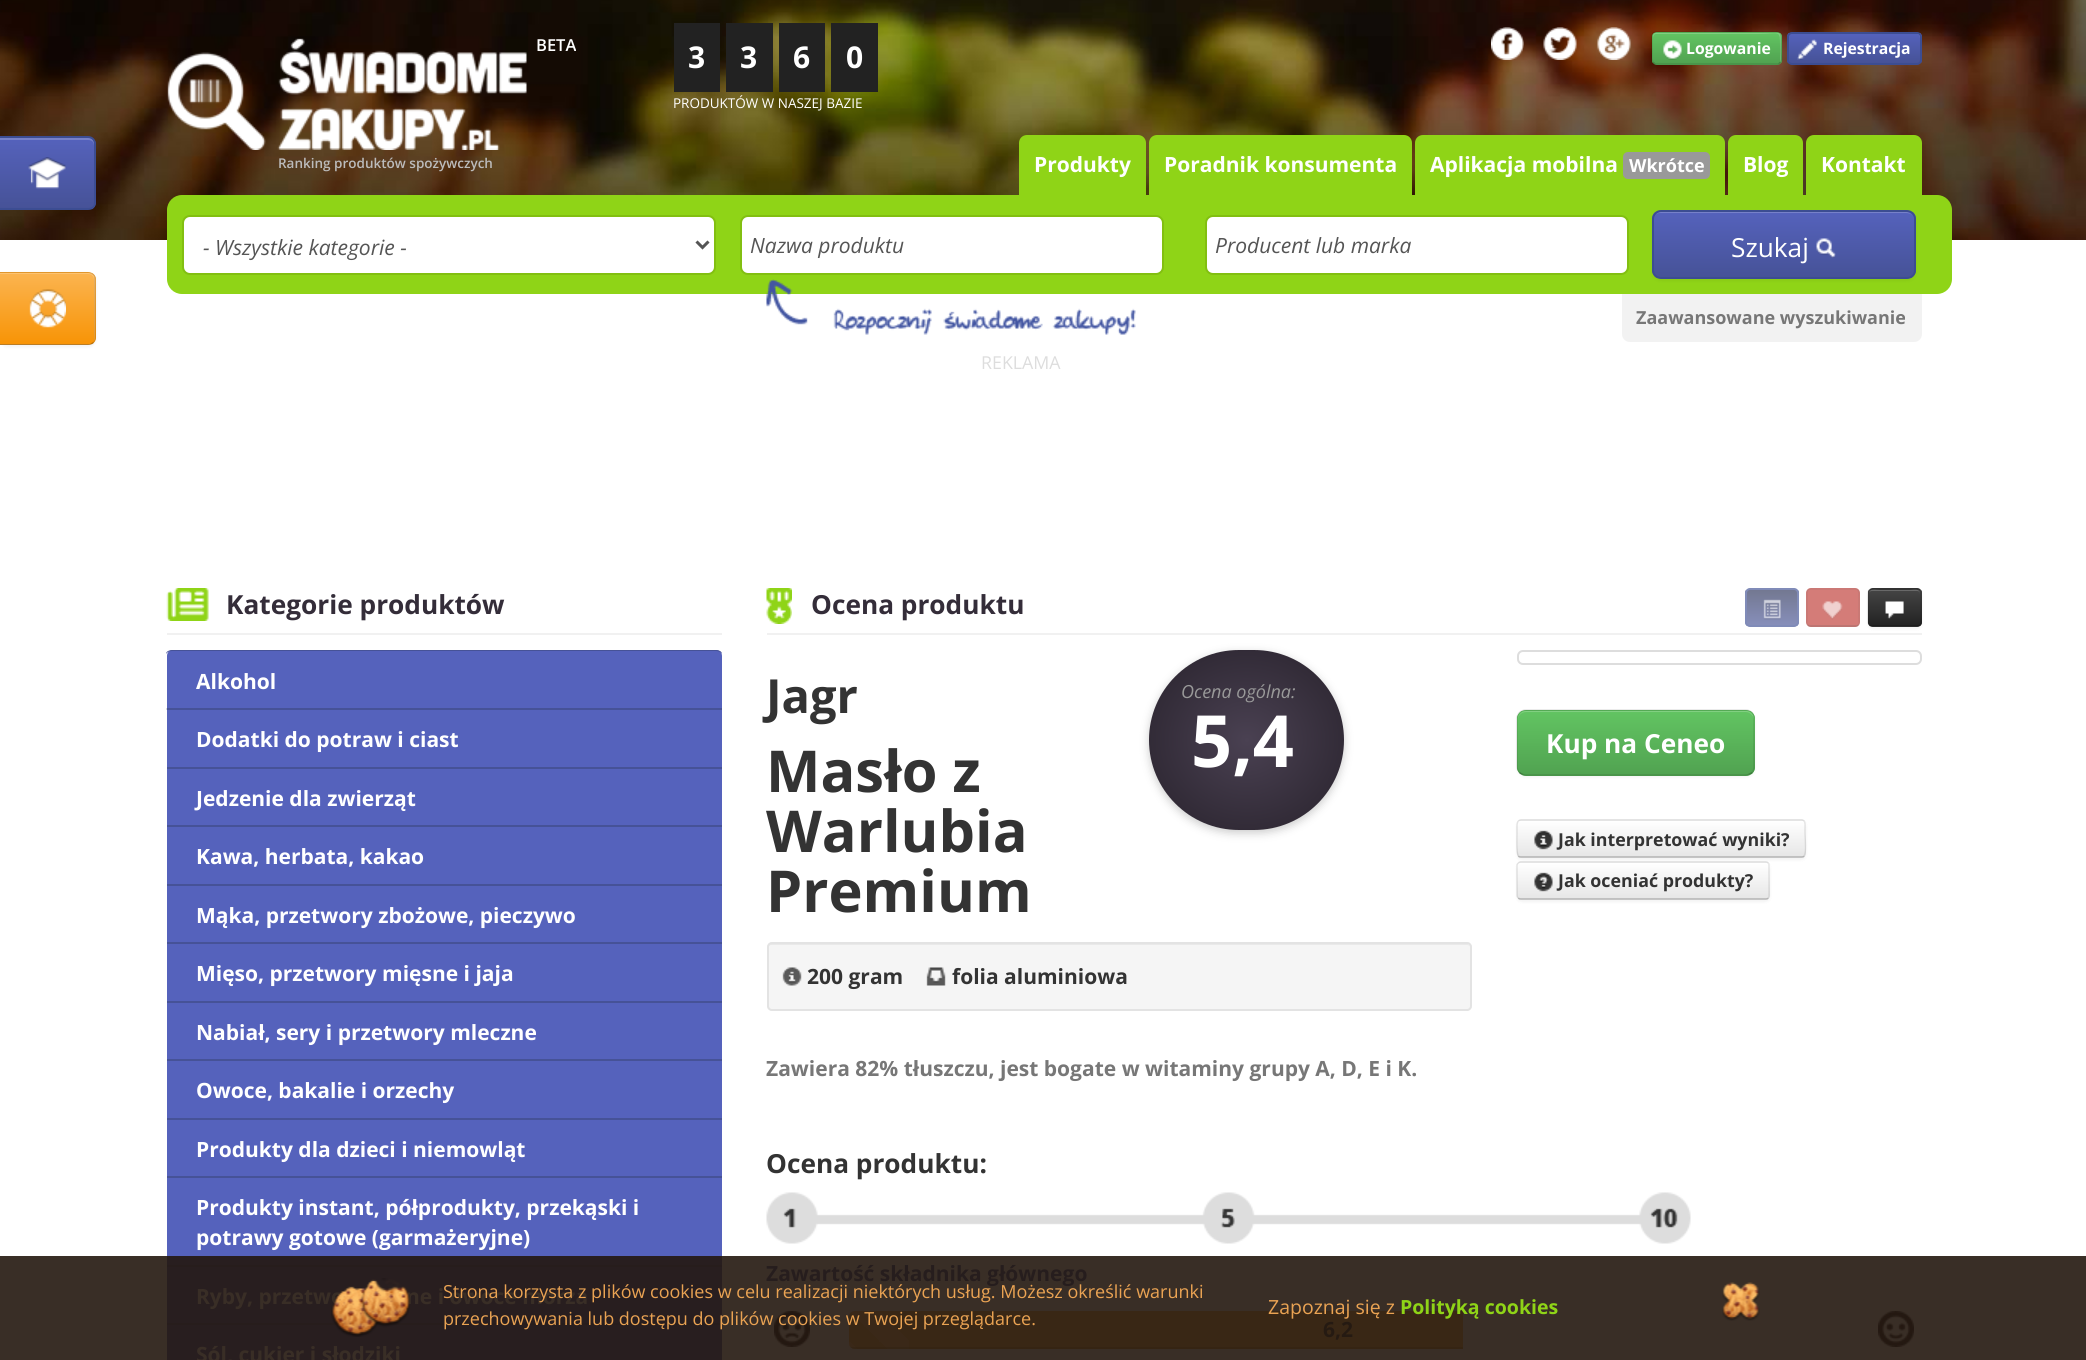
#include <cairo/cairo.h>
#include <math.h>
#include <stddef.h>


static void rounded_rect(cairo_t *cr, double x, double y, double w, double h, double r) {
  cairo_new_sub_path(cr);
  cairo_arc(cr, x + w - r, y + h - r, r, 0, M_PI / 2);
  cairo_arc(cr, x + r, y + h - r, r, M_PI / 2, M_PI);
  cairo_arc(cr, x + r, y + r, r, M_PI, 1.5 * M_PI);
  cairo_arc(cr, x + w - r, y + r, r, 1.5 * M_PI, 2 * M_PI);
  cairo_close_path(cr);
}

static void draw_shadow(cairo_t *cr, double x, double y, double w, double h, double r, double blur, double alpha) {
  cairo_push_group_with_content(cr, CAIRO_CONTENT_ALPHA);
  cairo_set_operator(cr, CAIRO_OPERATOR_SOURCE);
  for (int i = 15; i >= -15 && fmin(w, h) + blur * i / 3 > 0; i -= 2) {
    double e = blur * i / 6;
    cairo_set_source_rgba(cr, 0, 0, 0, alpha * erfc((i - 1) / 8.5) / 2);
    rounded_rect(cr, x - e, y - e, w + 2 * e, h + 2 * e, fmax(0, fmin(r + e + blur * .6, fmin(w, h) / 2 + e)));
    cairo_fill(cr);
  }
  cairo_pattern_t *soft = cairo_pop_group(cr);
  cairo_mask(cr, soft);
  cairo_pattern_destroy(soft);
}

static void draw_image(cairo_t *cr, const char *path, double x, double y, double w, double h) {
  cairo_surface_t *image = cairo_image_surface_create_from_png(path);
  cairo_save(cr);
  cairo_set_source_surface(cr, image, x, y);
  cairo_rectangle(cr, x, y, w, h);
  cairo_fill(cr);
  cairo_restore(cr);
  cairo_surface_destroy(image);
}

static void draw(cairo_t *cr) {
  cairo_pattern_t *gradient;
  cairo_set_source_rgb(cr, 1, 1, 1);
  cairo_paint(cr);
  cairo_set_source_rgb(cr, 57 / 255.0, 46 / 255.0, 38 / 255.0);
  cairo_rectangle(cr, 0, 1256, 2086, 104);
  cairo_fill(cr);
  draw_image(cr, "images/2.png", 0, 0, 2086, 240);
  cairo_save(cr);
  cairo_new_path(cr);
  cairo_move_to(cr, 0, 137);
  cairo_line_to(cr, 88, 137);
  cairo_curve_to(cr, 92.5, 137, 96, 140.5, 96, 145);
  cairo_line_to(cr, 96, 202);
  cairo_curve_to(cr, 96, 206.5, 92.5, 210, 88, 210);
  cairo_line_to(cr, 0, 210);
  cairo_close_path(cr);
  cairo_clip(cr);
  gradient = cairo_pattern_create_linear(47, 138, 47, 209);
  cairo_pattern_add_color_stop_rgba(gradient, 0, 85 / 255.0, 98 / 255.0, 188 / 255.0, 1);
  cairo_pattern_add_color_stop_rgba(gradient, 1, 70 / 255.0, 82 / 255.0, 151 / 255.0, 1);
  cairo_set_source(cr, gradient);
  cairo_pattern_destroy(gradient);
  cairo_rectangle(cr, 0, 138, 96, 71);
  cairo_fill(cr);
  cairo_restore(cr);
  cairo_set_source_rgba(cr, 1, 1, 1, 0.2);
  cairo_new_path(cr);
  cairo_move_to(cr, 0, 140);
  cairo_line_to(cr, 88, 140);
  cairo_curve_to(cr, 92, 140, 94, 142, 94, 146);
  cairo_line_to(cr, 94, 204);
  cairo_curve_to(cr, 94, 205, 94, 206, 93, 207);
  cairo_curve_to(cr, 94, 206, 95, 205, 95, 203);
  cairo_line_to(cr, 95, 144);
  cairo_curve_to(cr, 95, 141, 92, 138, 89, 138);
  cairo_line_to(cr, 0, 138);
  cairo_close_path(cr);
  cairo_fill(cr);
  cairo_set_source_rgb(cr, 60 / 255.0, 77 / 255.0, 146 / 255.0);
  cairo_set_fill_rule(cr, CAIRO_FILL_RULE_EVEN_ODD);
  cairo_new_path(cr);
  cairo_move_to(cr, 0, 136);
  cairo_line_to(cr, 88, 136);
  cairo_curve_to(cr, 93, 136, 96, 140, 96, 144);
  cairo_line_to(cr, 96, 202);
  cairo_curve_to(cr, 96, 207, 93, 210, 88, 210);
  cairo_line_to(cr, 0, 210);
  cairo_close_path(cr);
  cairo_move_to(cr, 0, 138);
  cairo_line_to(cr, 88, 138);
  cairo_curve_to(cr, 92, 138, 94, 141, 94, 144);
  cairo_line_to(cr, 94, 202);
  cairo_curve_to(cr, 94, 206, 92, 208, 88, 208);
  cairo_line_to(cr, 0, 208);
  cairo_close_path(cr);
  cairo_fill(cr);
  draw_image(cr, "images/1.png", 28, 157, 38, 32);
  draw_image(cr, "images/3.png", 167, 38, 360, 112);
  cairo_set_source_rgb(cr, 34 / 255.0, 34 / 255.0, 34 / 255.0);
  cairo_rectangle(cr, 674, 23, 46, 69);
  cairo_fill(cr);
  cairo_rectangle(cr, 726, 23, 47, 69);
  cairo_fill(cr);
  cairo_rectangle(cr, 779, 23, 46, 69);
  cairo_fill(cr);
  cairo_rectangle(cr, 831, 23, 47, 69);
  cairo_fill(cr);
  draw_image(cr, "images/4.png", 1491, 27, 33, 33);
  draw_image(cr, "images/5.png", 1543, 27, 34, 33);
  draw_image(cr, "images/6.png", 1597, 27, 34, 33);
  cairo_set_source_rgb(cr, 91 / 255.0, 183 / 255.0, 91 / 255.0);
  rounded_rect(cr, 1652, 32, 130, 33, 5);
  cairo_fill(cr);
  cairo_save(cr);
  cairo_set_fill_rule(cr, CAIRO_FILL_RULE_WINDING);
  rounded_rect(cr, 1652, 32, 130, 33, 5);
  cairo_clip(cr);
  gradient = cairo_pattern_create_linear(1717, 33, 1717, 63);
  cairo_pattern_add_color_stop_rgba(gradient, 0, 98 / 255.0, 196 / 255.0, 98 / 255.0, 1);
  cairo_pattern_add_color_stop_rgba(gradient, 1, 81 / 255.0, 163 / 255.0, 81 / 255.0, 1);
  cairo_set_source(cr, gradient);
  cairo_pattern_destroy(gradient);
  cairo_rectangle(cr, 1652, 33, 130, 30);
  cairo_fill(cr);
  cairo_restore(cr);
  cairo_set_source_rgba(cr, 1, 1, 1, 0.2);
  cairo_set_fill_rule(cr, CAIRO_FILL_RULE_WINDING);
  cairo_new_path(cr);
  cairo_move_to(cr, 1656, 34);
  cairo_line_to(cr, 1758, 34);
  cairo_curve_to(cr, 1780, 34, 1780, 29, 1780, 46);
  cairo_line_to(cr, 1780, 62);
  cairo_curve_to(cr, 1781, 62, 1781, 61, 1781, 60);
  cairo_line_to(cr, 1781, 36);
  cairo_curve_to(cr, 1781, 34, 1780, 33, 1778, 33);
  cairo_line_to(cr, 1656, 33);
  cairo_curve_to(cr, 1654, 33, 1653, 34, 1653, 36);
  cairo_line_to(cr, 1653, 38);
  cairo_curve_to(cr, 1653, 36, 1654, 34, 1656, 34);
  cairo_close_path(cr);
  cairo_fill(cr);
  cairo_new_path(cr);
  cairo_move_to(cr, 1780, 62.5);
  cairo_curve_to(cr, 1779.5, 63.5, 1778.5, 64, 1777.5, 64);
  cairo_line_to(cr, 1656, 64);
  cairo_curve_to(cr, 1655, 64, 1654, 63.5, 1653.5, 62.5);
  cairo_set_source_rgba(cr, 0, 0, 0, 0.25);
  cairo_set_line_width(cr, 1.5);
  cairo_stroke(cr);
  cairo_new_path(cr);
  cairo_move_to(cr, 1653.5, 62.5);
  cairo_curve_to(cr, 1651, 60, 1652, 55, 1652, 52);
  cairo_curve_to(cr, 1652, 27.5, 1648.5, 32, 1676, 32);
  cairo_line_to(cr, 1757, 32);
  cairo_curve_to(cr, 1785, 32, 1781, 27.5, 1781, 52);
  cairo_curve_to(cr, 1781, 55, 1782.5, 60, 1780, 62.5);
  cairo_set_source_rgba(cr, 0, 0, 0, 0.1);
  cairo_stroke(cr);
  draw_image(cr, "images/7.png", 1663, 40, 19, 20);
  cairo_save(cr);
  rounded_rect(cr, 1787, 32, 135, 33, 5);
  cairo_clip(cr);
  gradient = cairo_pattern_create_linear(1854, 33, 1854, 63);
  cairo_pattern_add_color_stop_rgba(gradient, 0, 85 / 255.0, 98 / 255.0, 188 / 255.0, 1);
  cairo_pattern_add_color_stop_rgba(gradient, 1, 70 / 255.0, 82 / 255.0, 151 / 255.0, 1);
  cairo_set_source(cr, gradient);
  cairo_pattern_destroy(gradient);
  cairo_rectangle(cr, 1787, 33, 135, 30);
  cairo_fill(cr);
  cairo_restore(cr);
  cairo_set_source_rgb(cr, 119 / 255.0, 129 / 255.0, 201 / 255.0);
  cairo_new_path(cr);
  cairo_move_to(cr, 1791, 34);
  cairo_line_to(cr, 1917, 34);
  cairo_curve_to(cr, 1919, 34, 1920, 36, 1920, 38);
  cairo_line_to(cr, 1920, 36);
  cairo_curve_to(cr, 1920, 34, 1919, 33, 1917, 33);
  cairo_line_to(cr, 1791, 33);
  cairo_curve_to(cr, 1789, 33, 1788, 34, 1788, 36);
  cairo_line_to(cr, 1788, 38);
  cairo_curve_to(cr, 1788, 36, 1789, 34, 1791, 34);
  cairo_close_path(cr);
  cairo_fill(cr);
  rounded_rect(cr, 1788, 33, 133, 31, 4);
  cairo_set_source_rgb(cr, 60 / 255.0, 77 / 255.0, 146 / 255.0);
  cairo_set_line_width(cr, 2);
  cairo_stroke(cr);
  draw_image(cr, "images/8.png", 1797, 39, 20, 21);
  cairo_set_source_rgb(cr, 143 / 255.0, 212 / 255.0, 23 / 255.0);
  cairo_new_path(cr);
  cairo_move_to(cr, 1027, 135);
  cairo_line_to(cr, 1138, 135);
  cairo_curve_to(cr, 1142.5, 135, 1146, 138.5, 1146, 143);
  cairo_line_to(cr, 1146, 195);
  cairo_line_to(cr, 1019, 195);
  cairo_line_to(cr, 1019, 143);
  cairo_curve_to(cr, 1019, 138.5, 1022.5, 135, 1027, 135);
  cairo_close_path(cr);
  cairo_fill(cr);
  cairo_new_path(cr);
  cairo_move_to(cr, 1157, 135);
  cairo_line_to(cr, 1404, 135);
  cairo_curve_to(cr, 1408.5, 135, 1412, 138.5, 1412, 143);
  cairo_line_to(cr, 1412, 195);
  cairo_line_to(cr, 1149, 195);
  cairo_line_to(cr, 1149, 143);
  cairo_curve_to(cr, 1149, 138.5, 1152.5, 135, 1157, 135);
  cairo_close_path(cr);
  cairo_fill(cr);
  cairo_new_path(cr);
  cairo_move_to(cr, 1423, 135);
  cairo_line_to(cr, 1717, 135);
  cairo_curve_to(cr, 1721.5, 135, 1725, 138.5, 1725, 143);
  cairo_line_to(cr, 1725, 195);
  cairo_line_to(cr, 1415, 195);
  cairo_line_to(cr, 1415, 143);
  cairo_curve_to(cr, 1415, 138.5, 1418.5, 135, 1423, 135);
  cairo_close_path(cr);
  cairo_fill(cr);
  cairo_set_source_rgb(cr, 153 / 255.0, 153 / 255.0, 153 / 255.0);
  rounded_rect(cr, 1623, 152, 87, 27, 5);
  cairo_fill(cr);
  cairo_set_source_rgb(cr, 143 / 255.0, 212 / 255.0, 23 / 255.0);
  cairo_new_path(cr);
  cairo_move_to(cr, 1736, 135);
  cairo_line_to(cr, 1795, 135);
  cairo_curve_to(cr, 1799.5, 135, 1803, 138.5, 1803, 143);
  cairo_line_to(cr, 1803, 195);
  cairo_line_to(cr, 1728, 195);
  cairo_line_to(cr, 1728, 143);
  cairo_curve_to(cr, 1728, 138.5, 1731.5, 135, 1736, 135);
  cairo_close_path(cr);
  cairo_fill(cr);
  cairo_new_path(cr);
  cairo_move_to(cr, 1814, 135);
  cairo_line_to(cr, 1914, 135);
  cairo_curve_to(cr, 1918.5, 135, 1922, 138.5, 1922, 143);
  cairo_line_to(cr, 1922, 195);
  cairo_line_to(cr, 1806, 195);
  cairo_line_to(cr, 1806, 143);
  cairo_curve_to(cr, 1806, 138.5, 1809.5, 135, 1814, 135);
  cairo_close_path(cr);
  cairo_fill(cr);
  rounded_rect(cr, 167, 195, 1785, 99, 15);
  cairo_fill(cr);
  cairo_set_source_rgb(cr, 1, 1, 1);
  rounded_rect(cr, 183, 216, 532, 58, 7);
  cairo_fill_preserve(cr);
  cairo_set_source_rgb(cr, 130 / 255.0, 191 / 255.0, 17 / 255.0);
  cairo_stroke(cr);
  cairo_new_path(cr);
  cairo_move_to(cr, 696.5, 241.5);
  cairo_line_to(cr, 702.5, 247.5);
  cairo_line_to(cr, 708.5, 241.5);
  cairo_set_source_rgb(cr, 85 / 255.0, 85 / 255.0, 85 / 255.0);
  cairo_set_line_width(cr, 3);
  cairo_stroke(cr);
  cairo_set_source_rgb(cr, 1, 1, 1);
  rounded_rect(cr, 741, 216, 422, 58, 7);
  cairo_fill_preserve(cr);
  cairo_set_source_rgb(cr, 130 / 255.0, 191 / 255.0, 17 / 255.0);
  cairo_set_line_width(cr, 2);
  cairo_stroke(cr);
  cairo_set_source_rgb(cr, 1, 1, 1);
  rounded_rect(cr, 1206, 216, 422, 58, 7);
  cairo_fill_preserve(cr);
  cairo_set_source_rgb(cr, 130 / 255.0, 191 / 255.0, 17 / 255.0);
  cairo_stroke(cr);
  cairo_set_source_rgb(cr, 0, 0, 0);
  draw_shadow(cr, 1652, 212, 264, 69, 9, 1.5, 0.05);
  cairo_save(cr);
  rounded_rect(cr, 1652, 210, 264, 69, 9);
  cairo_clip(cr);
  gradient = cairo_pattern_create_linear(1784, 212, 1784, 278);
  cairo_pattern_add_color_stop_rgba(gradient, 0, 85 / 255.0, 98 / 255.0, 188 / 255.0, 1);
  cairo_pattern_add_color_stop_rgba(gradient, 1, 70 / 255.0, 82 / 255.0, 151 / 255.0, 1);
  cairo_set_source(cr, gradient);
  cairo_pattern_destroy(gradient);
  cairo_rectangle(cr, 1652, 212, 264, 66);
  cairo_fill(cr);
  cairo_restore(cr);
  cairo_set_source_rgb(cr, 119 / 255.0, 129 / 255.0, 201 / 255.0);
  cairo_new_path(cr);
  cairo_move_to(cr, 1660, 213);
  cairo_line_to(cr, 1906, 213);
  cairo_curve_to(cr, 1911, 213, 1914, 216, 1914, 220);
  cairo_curve_to(cr, 1914, 216, 1910, 212, 1906, 212);
  cairo_line_to(cr, 1661, 212);
  cairo_curve_to(cr, 1657, 212, 1653, 216, 1653, 220);
  cairo_curve_to(cr, 1653, 216, 1656, 213, 1660, 213);
  cairo_close_path(cr);
  cairo_fill(cr);
  rounded_rect(cr, 1653, 211, 262, 67, 8);
  cairo_set_source_rgb(cr, 60 / 255.0, 77 / 255.0, 146 / 255.0);
  cairo_stroke(cr);
  draw_image(cr, "images/9.png", 1816, 238, 20, 20);
  draw_image(cr, "images/10.png", 766, 279, 370, 56);
  cairo_set_source_rgb(cr, 242 / 255.0, 242 / 255.0, 242 / 255.0);
  cairo_new_path(cr);
  cairo_move_to(cr, 1622, 294);
  cairo_line_to(cr, 1922, 294);
  cairo_line_to(cr, 1922, 334);
  cairo_curve_to(cr, 1922, 338.5, 1918.5, 342, 1914, 342);
  cairo_line_to(cr, 1630, 342);
  cairo_curve_to(cr, 1625.5, 342, 1622, 338.5, 1622, 334);
  cairo_close_path(cr);
  cairo_fill(cr);
  draw_image(cr, "images/11.png", 166, 588, 43, 33);
  cairo_set_source_rgb(cr, 241 / 255.0, 241 / 255.0, 241 / 255.0);
  cairo_rectangle(cr, 167, 633, 555, 2);
  cairo_fill(cr);
  cairo_set_source_rgb(cr, 85 / 255.0, 98 / 255.0, 188 / 255.0);
  cairo_new_path(cr);
  cairo_move_to(cr, 173, 650);
  cairo_line_to(cr, 716, 650);
  cairo_curve_to(cr, 719.5, 650, 722, 652.5, 722, 656);
  cairo_line_to(cr, 722, 710);
  cairo_line_to(cr, 167, 710);
  cairo_line_to(cr, 167, 656);
  cairo_curve_to(cr, 167, 652.5, 169.5, 650, 173, 650);
  cairo_close_path(cr);
  cairo_fill(cr);
  cairo_set_source_rgb(cr, 70 / 255.0, 82 / 255.0, 151 / 255.0);
  cairo_new_path(cr);
  cairo_move_to(cr, 172, 650);
  cairo_line_to(cr, 716, 650);
  cairo_curve_to(cr, 718, 650, 722, 651, 722, 654);
  cairo_curve_to(cr, 721, 652, 718, 651, 716, 651);
  cairo_line_to(cr, 172, 651);
  cairo_curve_to(cr, 170, 651, 167, 652, 166, 654);
  cairo_curve_to(cr, 166, 651, 170, 650, 172, 650);
  cairo_close_path(cr);
  cairo_fill(cr);
  cairo_set_source_rgb(cr, 221 / 255.0, 221 / 255.0, 221 / 255.0);
  cairo_rectangle(cr, 166, 708, 1, 2);
  cairo_fill(cr);
  cairo_set_source_rgb(cr, 85 / 255.0, 98 / 255.0, 188 / 255.0);
  cairo_rectangle(cr, 167, 710, 555, 57);
  cairo_fill(cr);
  cairo_set_source_rgb(cr, 70 / 255.0, 82 / 255.0, 151 / 255.0);
  cairo_rectangle(cr, 167, 708, 555, 2);
  cairo_fill(cr);
  cairo_set_source_rgb(cr, 85 / 255.0, 98 / 255.0, 188 / 255.0);
  cairo_rectangle(cr, 167, 769, 555, 56);
  cairo_fill(cr);
  cairo_set_source_rgb(cr, 70 / 255.0, 82 / 255.0, 151 / 255.0);
  cairo_rectangle(cr, 167, 767, 555, 2);
  cairo_fill(cr);
  cairo_set_source_rgb(cr, 85 / 255.0, 98 / 255.0, 188 / 255.0);
  cairo_rectangle(cr, 167, 827, 555, 57);
  cairo_fill(cr);
  cairo_set_source_rgb(cr, 70 / 255.0, 82 / 255.0, 151 / 255.0);
  cairo_rectangle(cr, 167, 825, 555, 2);
  cairo_fill(cr);
  cairo_set_source_rgb(cr, 85 / 255.0, 98 / 255.0, 188 / 255.0);
  cairo_rectangle(cr, 167, 886, 555, 56);
  cairo_fill(cr);
  cairo_set_source_rgb(cr, 70 / 255.0, 82 / 255.0, 151 / 255.0);
  cairo_rectangle(cr, 167, 884, 555, 2);
  cairo_fill(cr);
  cairo_set_source_rgb(cr, 85 / 255.0, 98 / 255.0, 188 / 255.0);
  cairo_rectangle(cr, 167, 944, 555, 57);
  cairo_fill(cr);
  cairo_set_source_rgb(cr, 70 / 255.0, 82 / 255.0, 151 / 255.0);
  cairo_rectangle(cr, 167, 942, 555, 2);
  cairo_fill(cr);
  cairo_set_source_rgb(cr, 85 / 255.0, 98 / 255.0, 188 / 255.0);
  cairo_rectangle(cr, 167, 1003, 555, 56);
  cairo_fill(cr);
  cairo_set_source_rgb(cr, 70 / 255.0, 82 / 255.0, 151 / 255.0);
  cairo_rectangle(cr, 167, 1001, 555, 2);
  cairo_fill(cr);
  cairo_set_source_rgb(cr, 85 / 255.0, 98 / 255.0, 188 / 255.0);
  cairo_rectangle(cr, 167, 1061, 555, 57);
  cairo_fill(cr);
  cairo_set_source_rgb(cr, 70 / 255.0, 82 / 255.0, 151 / 255.0);
  cairo_rectangle(cr, 167, 1059, 555, 2);
  cairo_fill(cr);
  cairo_set_source_rgb(cr, 85 / 255.0, 98 / 255.0, 188 / 255.0);
  cairo_rectangle(cr, 167, 1120, 555, 56);
  cairo_fill(cr);
  cairo_set_source_rgb(cr, 70 / 255.0, 82 / 255.0, 151 / 255.0);
  cairo_rectangle(cr, 167, 1118, 555, 2);
  cairo_fill(cr);
  cairo_set_source_rgb(cr, 85 / 255.0, 98 / 255.0, 188 / 255.0);
  cairo_rectangle(cr, 167, 1178, 555, 78);
  cairo_fill(cr);
  cairo_set_source_rgb(cr, 40 / 255.0, 30 / 255.0, 31 / 255.0);
  cairo_rectangle(cr, 167, 1256, 555, 9);
  cairo_fill(cr);
  cairo_set_source_rgb(cr, 70 / 255.0, 82 / 255.0, 151 / 255.0);
  cairo_rectangle(cr, 167, 1176, 555, 2);
  cairo_fill(cr);
  cairo_set_source_rgb(cr, 40 / 255.0, 30 / 255.0, 31 / 255.0);
  cairo_rectangle(cr, 167, 1267, 555, 56);
  cairo_fill(cr);
  cairo_set_source_rgb(cr, 39 / 255.0, 29 / 255.0, 28 / 255.0);
  cairo_rectangle(cr, 167, 1265, 555, 2);
  cairo_fill(cr);
  cairo_set_source_rgb(cr, 40 / 255.0, 30 / 255.0, 31 / 255.0);
  cairo_rectangle(cr, 167, 1325, 555, 35);
  cairo_fill(cr);
  cairo_set_source_rgb(cr, 39 / 255.0, 29 / 255.0, 28 / 255.0);
  cairo_rectangle(cr, 167, 1323, 555, 2);
  cairo_fill(cr);
  draw_image(cr, "images/12.png", 766, 588, 26, 36);
  cairo_set_source_rgb(cr, 241 / 255.0, 241 / 255.0, 241 / 255.0);
  cairo_rectangle(cr, 767, 633, 1155, 2);
  cairo_fill(cr);
  cairo_save(cr);
  rounded_rect(cr, 1745, 588, 54, 39, 5);
  cairo_clip(cr);
  gradient = cairo_pattern_create_linear(1772, 590, 1772, 626);
  cairo_pattern_add_color_stop_rgba(gradient, 0, 115 / 255.0, 120 / 255.0, 145 / 255.0, 1);
  cairo_pattern_add_color_stop_rgba(gradient, 1, 135 / 255.0, 143 / 255.0, 187 / 255.0, 1);
  cairo_set_source(cr, gradient);
  cairo_pattern_destroy(gradient);
  cairo_rectangle(cr, 1745, 590, 54, 36);
  cairo_fill(cr);
  cairo_restore(cr);
  rounded_rect(cr, 1746, 589, 52, 37, 4);
  cairo_set_source_rgb(cr, 128 / 255.0, 139 / 255.0, 184 / 255.0);
  cairo_stroke(cr);
  draw_image(cr, "images/13.png", 1763, 599, 18, 21);
  cairo_set_source_rgb(cr, 212 / 255.0, 124 / 255.0, 120 / 255.0);
  rounded_rect(cr, 1806, 588, 54, 39, 5);
  cairo_fill(cr);
  cairo_new_path(cr);
  cairo_move_to(cr, 1858, 625);
  cairo_curve_to(cr, 1857.5, 626, 1856.5, 626, 1855.5, 626);
  cairo_line_to(cr, 1810.5, 626);
  cairo_curve_to(cr, 1809.5, 626, 1808.5, 626, 1808, 625);
  cairo_set_source_rgba(cr, 89 / 255.0, 89 / 255.0, 89 / 255.0, 0.25);
  cairo_set_line_width(cr, 1.5);
  cairo_stroke(cr);
  cairo_new_path(cr);
  cairo_move_to(cr, 1808, 625);
  cairo_curve_to(cr, 1806, 623.5, 1807, 619.5, 1807, 617.5);
  cairo_line_to(cr, 1807, 597.5);
  cairo_curve_to(cr, 1807, 587.5, 1807.5, 589, 1818, 589);
  cairo_line_to(cr, 1848, 589);
  cairo_curve_to(cr, 1858.5, 589, 1859, 587.5, 1859, 597.5);
  cairo_line_to(cr, 1859, 617.5);
  cairo_curve_to(cr, 1859, 619.5, 1860, 623.5, 1858, 625);
  cairo_set_source_rgba(cr, 89 / 255.0, 89 / 255.0, 89 / 255.0, 0.1);
  cairo_stroke(cr);
  draw_image(cr, "images/14.png", 1822, 601, 21, 19);
  cairo_set_source_rgb(cr, 0, 0, 0);
  draw_shadow(cr, 1868, 590, 54, 39, 5, 1.5, 0.05);
  cairo_set_source_rgb(cr, 54 / 255.0, 54 / 255.0, 54 / 255.0);
  rounded_rect(cr, 1868, 588, 54, 39, 5);
  cairo_fill(cr);
  cairo_save(cr);
  rounded_rect(cr, 1868, 588, 54, 39, 5);
  cairo_clip(cr);
  gradient = cairo_pattern_create_linear(1895, 590, 1895, 626);
  cairo_pattern_add_color_stop_rgba(gradient, 0, 68 / 255.0, 68 / 255.0, 68 / 255.0, 1);
  cairo_pattern_add_color_stop_rgba(gradient, 1, 34 / 255.0, 34 / 255.0, 34 / 255.0, 1);
  cairo_set_source(cr, gradient);
  cairo_pattern_destroy(gradient);
  cairo_rectangle(cr, 1868, 590, 54, 36);
  cairo_fill(cr);
  cairo_restore(cr);
  cairo_set_source_rgb(cr, 105 / 255.0, 105 / 255.0, 105 / 255.0);
  cairo_new_path(cr);
  cairo_move_to(cr, 1872, 591);
  cairo_line_to(cr, 1917, 591);
  cairo_curve_to(cr, 1919, 591, 1920, 592, 1920, 594);
  cairo_curve_to(cr, 1920, 588, 1914, 590, 1910, 590);
  cairo_line_to(cr, 1880, 590);
  cairo_curve_to(cr, 1875, 590, 1869, 588, 1869, 594);
  cairo_curve_to(cr, 1869, 592, 1870, 591, 1872, 591);
  cairo_close_path(cr);
  cairo_fill(cr);
  cairo_new_path(cr);
  cairo_move_to(cr, 1919.5, 625);
  cairo_curve_to(cr, 1919, 626, 1918, 626, 1917, 626);
  cairo_line_to(cr, 1872, 626);
  cairo_curve_to(cr, 1871, 626, 1870, 626, 1869.5, 625);
  cairo_set_source_rgba(cr, 0, 0, 0, 0.25);
  cairo_stroke(cr);
  cairo_new_path(cr);
  cairo_move_to(cr, 1869.5, 625);
  cairo_curve_to(cr, 1867.5, 623.5, 1868, 619.5, 1868, 617.5);
  cairo_line_to(cr, 1868, 597.5);
  cairo_curve_to(cr, 1868, 587.5, 1869, 589, 1879.5, 589);
  cairo_line_to(cr, 1909.5, 589);
  cairo_curve_to(cr, 1920, 589, 1921, 587.5, 1921, 597.5);
  cairo_line_to(cr, 1921, 617.5);
  cairo_curve_to(cr, 1921, 619.5, 1921.5, 623.5, 1919.5, 625);
  cairo_set_source_rgba(cr, 0, 0, 0, 0.1);
  cairo_stroke(cr);
  draw_image(cr, "images/15.png", 1885, 601, 19, 18);
  cairo_set_source_rgb(cr, 204 / 255.0, 204 / 255.0, 204 / 255.0);
  draw_shadow(cr, 1149, 653, 195, 180, 90, 4.5, 1);
  gradient = cairo_pattern_create_radial(0, 0, 0, 0, 0, 1);
  cairo_pattern_set_matrix(gradient, &(cairo_matrix_t){1.0 / 138, 0, 0, 1.0 / 127, -1.0 * 1247 / 138, -1.0 * 740 / 127});
  cairo_pattern_add_color_stop_rgba(gradient, 0, 74 / 255.0, 65 / 255.0, 82 / 255.0, 1);
  cairo_pattern_add_color_stop_rgba(gradient, 1, 40 / 255.0, 34 / 255.0, 44 / 255.0, 1);
  cairo_set_source(cr, gradient);
  cairo_pattern_destroy(gradient);
  rounded_rect(cr, 1149, 650, 195, 180, 90);
  cairo_fill(cr);
  cairo_set_source_rgb(cr, 245 / 255.0, 245 / 255.0, 245 / 255.0);
  rounded_rect(cr, 767, 942, 705, 69, 5);
  cairo_fill(cr);
  cairo_set_source_rgb(cr, 233 / 255.0, 233 / 255.0, 233 / 255.0);
  cairo_new_path(cr);
  cairo_move_to(cr, 771, 945);
  cairo_line_to(cr, 1467, 945);
  cairo_curve_to(cr, 1469, 945, 1470, 946, 1470, 948);
  cairo_curve_to(cr, 1470, 946, 1469, 944, 1467, 944);
  cairo_line_to(cr, 771, 944);
  cairo_curve_to(cr, 769, 944, 768, 946, 768, 948);
  cairo_curve_to(cr, 768, 946, 769, 945, 771, 945);
  cairo_close_path(cr);
  cairo_fill(cr);
  rounded_rect(cr, 768, 943, 703, 67, 4);
  cairo_set_source_rgb(cr, 227 / 255.0, 227 / 255.0, 227 / 255.0);
  cairo_set_line_width(cr, 2);
  cairo_stroke(cr);
  draw_image(cr, "images/16.png", 782, 967, 20, 19);
  draw_image(cr, "images/17.png", 926, 967, 20, 19);
  rounded_rect(cr, 1518, 651, 403, 13, 5);
  cairo_set_source_rgb(cr, 221 / 255.0, 221 / 255.0, 221 / 255.0);
  cairo_stroke(cr);
  cairo_set_source_rgb(cr, 0, 0, 0);
  draw_shadow(cr, 1517, 711, 238, 66, 9, 1.5, 0.05);
  cairo_set_source_rgb(cr, 91 / 255.0, 183 / 255.0, 91 / 255.0);
  rounded_rect(cr, 1517, 710, 238, 66, 9);
  cairo_fill(cr);
  cairo_save(cr);
  rounded_rect(cr, 1517, 710, 238, 66, 9);
  cairo_clip(cr);
  gradient = cairo_pattern_create_linear(1636, 711, 1636, 774);
  cairo_pattern_add_color_stop_rgba(gradient, 0, 98 / 255.0, 196 / 255.0, 98 / 255.0, 1);
  cairo_pattern_add_color_stop_rgba(gradient, 1, 81 / 255.0, 163 / 255.0, 81 / 255.0, 1);
  cairo_set_source(cr, gradient);
  cairo_pattern_destroy(gradient);
  cairo_rectangle(cr, 1517, 711, 238, 63);
  cairo_fill(cr);
  cairo_restore(cr);
  cairo_set_source_rgb(cr, 129 / 255.0, 208 / 255.0, 129 / 255.0);
  cairo_new_path(cr);
  cairo_move_to(cr, 1526, 712);
  cairo_line_to(cr, 1746, 712);
  cairo_curve_to(cr, 1750, 712, 1754, 716, 1754, 720);
  cairo_line_to(cr, 1754, 719);
  cairo_curve_to(cr, 1754, 715, 1750, 711, 1746, 711);
  cairo_line_to(cr, 1526, 711);
  cairo_curve_to(cr, 1522, 711, 1518, 715, 1518, 719);
  cairo_line_to(cr, 1518, 720);
  cairo_curve_to(cr, 1518, 716, 1521, 712, 1526, 712);
  cairo_close_path(cr);
  cairo_fill(cr);
  cairo_new_path(cr);
  cairo_move_to(cr, 1752, 772.5);
  cairo_curve_to(cr, 1750.5, 774, 1748, 775, 1746, 775);
  cairo_line_to(cr, 1525.5, 775);
  cairo_curve_to(cr, 1523.5, 775, 1521, 774, 1519.5, 772.5);
  cairo_set_source_rgba(cr, 0, 0, 0, 0.25);
  cairo_set_line_width(cr, 1.5);
  cairo_stroke(cr);
  cairo_new_path(cr);
  cairo_move_to(cr, 1519.5, 772.5);
  cairo_curve_to(cr, 1518, 771, 1517, 768.5, 1517, 766.5);
  cairo_line_to(cr, 1517, 718.5);
  cairo_curve_to(cr, 1517, 716.5, 1518, 714, 1519.5, 712.5);
  cairo_curve_to(cr, 1521, 711, 1523.5, 710, 1525.5, 710);
  cairo_line_to(cr, 1746, 710);
  cairo_curve_to(cr, 1748, 710, 1750.5, 711, 1752, 712.5);
  cairo_curve_to(cr, 1753.5, 714, 1754, 716.5, 1754, 718.5);
  cairo_line_to(cr, 1754, 766.5);
  cairo_curve_to(cr, 1754, 768.5, 1753.5, 771, 1752, 772.5);
  cairo_set_source_rgba(cr, 0, 0, 0, 0.1);
  cairo_stroke(cr);
  cairo_set_source_rgb(cr, 0, 0, 0);
  draw_shadow(cr, 1517, 821, 289, 39, 5, 1.5, 0.05);
  cairo_set_source_rgb(cr, 245 / 255.0, 245 / 255.0, 245 / 255.0);
  rounded_rect(cr, 1517, 819, 289, 39, 5);
  cairo_fill(cr);
  cairo_save(cr);
  rounded_rect(cr, 1517, 819, 289, 39, 5);
  cairo_clip(cr);
  gradient = cairo_pattern_create_linear(1661, 821, 1661, 857);
  cairo_pattern_add_color_stop_rgba(gradient, 0, 1, 1, 1, 1);
  cairo_pattern_add_color_stop_rgba(gradient, 1, 230 / 255.0, 230 / 255.0, 230 / 255.0, 1);
  cairo_set_source(cr, gradient);
  cairo_pattern_destroy(gradient);
  cairo_rectangle(cr, 1517, 821, 289, 36);
  cairo_fill(cr);
  cairo_restore(cr);
  cairo_set_source_rgba(cr, 1, 1, 1, 0.2);
  cairo_new_path(cr);
  cairo_move_to(cr, 1521, 822);
  cairo_line_to(cr, 1802, 822);
  cairo_curve_to(cr, 1806, 822, 1804, 834, 1804, 835);
  cairo_line_to(cr, 1804, 856);
  cairo_curve_to(cr, 1805, 856, 1805, 855, 1805, 854);
  cairo_line_to(cr, 1805, 824);
  cairo_curve_to(cr, 1805, 822, 1804, 821, 1802, 821);
  cairo_line_to(cr, 1521, 821);
  cairo_curve_to(cr, 1519, 821, 1518, 822, 1518, 824);
  cairo_line_to(cr, 1518, 825);
  cairo_curve_to(cr, 1518, 823, 1519, 822, 1521, 822);
  cairo_close_path(cr);
  cairo_fill(cr);
  cairo_new_path(cr);
  cairo_move_to(cr, 1804, 856);
  cairo_curve_to(cr, 1803.5, 857, 1802.5, 857, 1801.5, 857);
  cairo_line_to(cr, 1521, 857);
  cairo_curve_to(cr, 1520, 857, 1519, 857, 1518.5, 856);
  cairo_set_source_rgb(cr, 179 / 255.0, 179 / 255.0, 179 / 255.0);
  cairo_stroke(cr);
  cairo_new_path(cr);
  cairo_move_to(cr, 1518.5, 856);
  cairo_curve_to(cr, 1516, 853.5, 1517, 837.5, 1517, 833.5);
  cairo_line_to(cr, 1517, 828.5);
  cairo_curve_to(cr, 1517, 825.5, 1516.5, 820, 1521, 820);
  cairo_line_to(cr, 1801.5, 820);
  cairo_curve_to(cr, 1806, 820, 1805, 825.5, 1805, 828.5);
  cairo_line_to(cr, 1805, 833.5);
  cairo_curve_to(cr, 1805, 837.5, 1806.5, 853.5, 1804, 856);
  cairo_set_source_rgba(cr, 0, 0, 0, 0.1);
  cairo_stroke(cr);
  draw_image(cr, "images/18.png", 1534, 830, 19, 20);
  cairo_set_source_rgb(cr, 0, 0, 0);
  draw_shadow(cr, 1517, 863, 253, 39, 5, 1.5, 0.05);
  cairo_set_source_rgb(cr, 245 / 255.0, 245 / 255.0, 245 / 255.0);
  rounded_rect(cr, 1517, 861, 253, 39, 5);
  cairo_fill(cr);
  cairo_save(cr);
  rounded_rect(cr, 1517, 861, 253, 39, 5);
  cairo_clip(cr);
  gradient = cairo_pattern_create_linear(1643, 863, 1643, 899);
  cairo_pattern_add_color_stop_rgba(gradient, 0, 1, 1, 1, 1);
  cairo_pattern_add_color_stop_rgba(gradient, 1, 230 / 255.0, 230 / 255.0, 230 / 255.0, 1);
  cairo_set_source(cr, gradient);
  cairo_pattern_destroy(gradient);
  cairo_rectangle(cr, 1517, 863, 253, 36);
  cairo_fill(cr);
  cairo_restore(cr);
  cairo_set_source_rgba(cr, 1, 1, 1, 0.2);
  cairo_new_path(cr);
  cairo_move_to(cr, 1521, 864);
  cairo_line_to(cr, 1766, 864);
  cairo_curve_to(cr, 1770, 864, 1768, 876, 1768, 877);
  cairo_line_to(cr, 1768, 898);
  cairo_curve_to(cr, 1769, 898, 1769, 897, 1769, 896);
  cairo_line_to(cr, 1769, 866);
  cairo_curve_to(cr, 1769, 864, 1768, 863, 1766, 863);
  cairo_line_to(cr, 1521, 863);
  cairo_curve_to(cr, 1519, 863, 1518, 864, 1518, 866);
  cairo_line_to(cr, 1518, 867);
  cairo_curve_to(cr, 1518, 865, 1519, 864, 1521, 864);
  cairo_close_path(cr);
  cairo_fill(cr);
  cairo_new_path(cr);
  cairo_move_to(cr, 1768, 898);
  cairo_curve_to(cr, 1767.5, 899, 1766.5, 899, 1765.5, 899);
  cairo_line_to(cr, 1521, 899);
  cairo_curve_to(cr, 1520, 899, 1519, 899, 1518.5, 898);
  cairo_set_source_rgb(cr, 179 / 255.0, 179 / 255.0, 179 / 255.0);
  cairo_stroke(cr);
  cairo_new_path(cr);
  cairo_move_to(cr, 1518.5, 898);
  cairo_curve_to(cr, 1517.5, 897.5, 1517, 896.5, 1517, 895.5);
  cairo_line_to(cr, 1517, 865.5);
  cairo_curve_to(cr, 1517, 864.5, 1517.5, 863.5, 1518.5, 863);
  cairo_curve_to(cr, 1519, 862, 1520, 862, 1521, 862);
  cairo_line_to(cr, 1765.5, 862);
  cairo_curve_to(cr, 1766.5, 862, 1767.5, 862, 1768, 863);
  cairo_curve_to(cr, 1769, 863.5, 1769, 864.5, 1769, 865.5);
  cairo_line_to(cr, 1769, 895.5);
  cairo_curve_to(cr, 1769, 896.5, 1769, 897.5, 1768, 898);
  cairo_set_source_rgba(cr, 0, 0, 0, 0.1);
  cairo_stroke(cr);
  draw_image(cr, "images/19.png", 1534, 872, 19, 20);
  draw_image(cr, "images/20.png", 766, 1192, 925, 52);
  draw_image(cr, "images/21.png", 774, 1311, 36, 36);
  cairo_set_source_rgb(cr, 57 / 255.0, 39 / 255.0, 21 / 255.0);
  cairo_new_path(cr);
  cairo_move_to(cr, 855, 1311);
  cairo_line_to(cr, 1463, 1311);
  cairo_line_to(cr, 1463, 1349);
  cairo_line_to(cr, 855, 1349);
  cairo_curve_to(cr, 851.5, 1349, 849, 1346.5, 849, 1343);
  cairo_line_to(cr, 849, 1317);
  cairo_curve_to(cr, 849, 1313.5, 851.5, 1311, 855, 1311);
  cairo_close_path(cr);
  cairo_fill(cr);
  gradient = cairo_pattern_create_linear(849, 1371, 909, 1311);
  cairo_pattern_add_color_stop_rgba(gradient, 0.25, 57 / 255.0, 46 / 255.0, 38 / 255.0, 0.15);
  cairo_pattern_add_color_stop_rgba(gradient, 0.25, 57 / 255.0, 46 / 255.0, 38 / 255.0, 0);
  cairo_pattern_add_color_stop_rgba(gradient, 0.5, 57 / 255.0, 46 / 255.0, 38 / 255.0, 0);
  cairo_pattern_add_color_stop_rgba(gradient, 0.5, 57 / 255.0, 46 / 255.0, 38 / 255.0, 0.15);
  cairo_pattern_add_color_stop_rgba(gradient, 0.75, 57 / 255.0, 46 / 255.0, 38 / 255.0, 0.15);
  cairo_pattern_add_color_stop_rgba(gradient, 0.75, 57 / 255.0, 46 / 255.0, 38 / 255.0, 0);
  cairo_pattern_add_color_stop_rgba(gradient, 1, 32 / 255.0, 21 / 255.0, 13 / 255.0, 0);
  cairo_set_source(cr, gradient);
  cairo_pattern_destroy(gradient);
  cairo_new_path(cr);
  cairo_move_to(cr, 855, 1311);
  cairo_line_to(cr, 909, 1311);
  cairo_line_to(cr, 909, 1349);
  cairo_line_to(cr, 855, 1349);
  cairo_curve_to(cr, 851.5, 1349, 849, 1346.5, 849, 1343);
  cairo_line_to(cr, 849, 1317);
  cairo_curve_to(cr, 849, 1313.5, 851.5, 1311, 855, 1311);
  cairo_close_path(cr);
  cairo_fill(cr);
  cairo_save(cr);
  rounded_rect(cr, 849, 1311, 990, 38, 6);
  cairo_clip(cr);
  cairo_set_source_rgba(cr, 32 / 255.0, 21 / 255.0, 13 / 255.0, 0.15);
  cairo_rectangle(cr, 849, 1347, 614, 2);
  cairo_fill(cr);
  cairo_restore(cr);
  draw_image(cr, "images/22.png", 1878, 1311, 36, 36);
  cairo_set_source_rgb(cr, 0, 0, 0);
  draw_shadow(cr, 0, 273, 96, 74, 8, 1.5, 0.05);
  cairo_set_source_rgb(cr, 250 / 255.0, 167 / 255.0, 50 / 255.0);
  cairo_new_path(cr);
  cairo_move_to(cr, 0, 272);
  cairo_line_to(cr, 88, 272);
  cairo_curve_to(cr, 92.5, 272, 96, 275.5, 96, 280);
  cairo_line_to(cr, 96, 337);
  cairo_curve_to(cr, 96, 341.5, 92.5, 345, 88, 345);
  cairo_line_to(cr, 0, 345);
  cairo_close_path(cr);
  cairo_fill(cr);
  cairo_save(cr);
  cairo_new_path(cr);
  cairo_move_to(cr, 0, 272);
  cairo_line_to(cr, 88, 272);
  cairo_curve_to(cr, 92.5, 272, 96, 275.5, 96, 280);
  cairo_line_to(cr, 96, 337);
  cairo_curve_to(cr, 96, 341.5, 92.5, 345, 88, 345);
  cairo_line_to(cr, 0, 345);
  cairo_close_path(cr);
  cairo_clip(cr);
  gradient = cairo_pattern_create_linear(47, 273, 47, 344);
  cairo_pattern_add_color_stop_rgba(gradient, 0, 251 / 255.0, 180 / 255.0, 80 / 255.0, 1);
  cairo_pattern_add_color_stop_rgba(gradient, 1, 248 / 255.0, 148 / 255.0, 6 / 255.0, 1);
  cairo_set_source(cr, gradient);
  cairo_pattern_destroy(gradient);
  cairo_rectangle(cr, 0, 273, 96, 71);
  cairo_fill(cr);
  cairo_restore(cr);
  cairo_set_source_rgba(cr, 1, 1, 1, 0.2);
  cairo_new_path(cr);
  cairo_move_to(cr, 0, 274);
  cairo_line_to(cr, 88, 274);
  cairo_curve_to(cr, 92, 274, 94, 277, 94, 280);
  cairo_line_to(cr, 94, 339);
  cairo_curve_to(cr, 94, 340, 94, 341, 93, 342);
  cairo_curve_to(cr, 94, 341, 95, 340, 95, 338);
  cairo_line_to(cr, 95, 279);
  cairo_curve_to(cr, 95, 276, 92, 273, 89, 273);
  cairo_line_to(cr, 0, 273);
  cairo_close_path(cr);
  cairo_fill(cr);
  cairo_set_source_rgba(cr, 0, 0, 0, 0.1);
  cairo_new_path(cr);
  cairo_move_to(cr, 0, 273);
  cairo_line_to(cr, 89, 273);
  cairo_line_to(cr, 93, 275);
  cairo_line_to(cr, 94, 274);
  cairo_curve_to(cr, 92, 273, 90, 272, 88, 272);
  cairo_line_to(cr, 0, 272);
  cairo_close_path(cr);
  cairo_fill(cr);
  cairo_new_path(cr);
  cairo_move_to(cr, 94, 274);
  cairo_curve_to(cr, 95, 275, 96, 277, 96, 279);
  cairo_line_to(cr, 96, 338);
  cairo_curve_to(cr, 96, 340, 95, 342, 94, 343);
  cairo_line_to(cr, 93, 342);
  cairo_curve_to(cr, 94, 341, 94, 339, 94, 338);
  cairo_line_to(cr, 94, 279);
  cairo_curve_to(cr, 94, 278, 94, 276, 93, 275);
  cairo_close_path(cr);
  cairo_fill(cr);
  cairo_set_source_rgba(cr, 0, 0, 0, 0.25);
  cairo_new_path(cr);
  cairo_move_to(cr, 0, 344);
  cairo_line_to(cr, 0, 345);
  cairo_line_to(cr, 88, 345);
  cairo_curve_to(cr, 91, 345, 93, 344, 94, 343);
  cairo_line_to(cr, 93, 342);
  cairo_line_to(cr, 90, 344);
  cairo_close_path(cr);
  cairo_fill(cr);
  draw_image(cr, "images/23.png", 29, 289, 37, 39);
  draw_image(cr, "images/25.png", 1722, 1282, 38, 39);
  cairo_select_font_face(cr, "Open Sans SemiBold", CAIRO_FONT_SLANT_NORMAL, CAIRO_FONT_WEIGHT_NORMAL);
  cairo_set_font_size(cr, 16.5);
  cairo_set_source_rgb(cr, 1, 1, 1);
  cairo_move_to(cr, 536, 51);
  cairo_show_text(cr, "BETA");
  cairo_set_font_size(cr, 13.5);
  cairo_set_source_rgb(cr, 187 / 255.0, 187 / 255.0, 187 / 255.0);
  cairo_move_to(cr, 278, 168);
  cairo_show_text(cr, "Ranking produktów spożywczych");
  cairo_select_font_face(cr, "Open Sans", CAIRO_FONT_SLANT_NORMAL, CAIRO_FONT_WEIGHT_BOLD);
  cairo_set_font_size(cr, 30);
  cairo_set_source_rgb(cr, 1, 1, 1);
  cairo_move_to(cr, 688, 68);
  cairo_show_text(cr, "3");
  cairo_move_to(cr, 740, 68);
  cairo_show_text(cr, "3");
  cairo_move_to(cr, 793, 68);
  cairo_show_text(cr, "6");
  cairo_move_to(cr, 846, 68);
  cairo_show_text(cr, "0");
  cairo_select_font_face(cr, "Open Sans", CAIRO_FONT_SLANT_NORMAL, CAIRO_FONT_WEIGHT_NORMAL);
  cairo_set_font_size(cr, 13.5);
  cairo_move_to(cr, 673, 108);
  cairo_show_text(cr, "PRODUKTÓW W NASZEJ BAZIE");
  cairo_select_font_face(cr, "Open Sans", CAIRO_FONT_SLANT_NORMAL, CAIRO_FONT_WEIGHT_BOLD);
  cairo_set_font_size(cr, 15.75);
  cairo_move_to(cr, 1686, 54);
  cairo_show_text(cr, "Logowanie");
  cairo_move_to(cr, 1823, 54);
  cairo_show_text(cr, "Rejestracja");
  cairo_set_font_size(cr, 21);
  cairo_move_to(cr, 1034, 172);
  cairo_show_text(cr, "Produkty");
  cairo_move_to(cr, 1164, 172);
  cairo_show_text(cr, "Poradnik konsumenta");
  cairo_move_to(cr, 1430, 172);
  cairo_show_text(cr, "Aplikacja mobilna");
  cairo_set_font_size(cr, 18);
  cairo_move_to(cr, 1629, 172);
  cairo_show_text(cr, "Wkrótce");
  cairo_set_font_size(cr, 21);
  cairo_move_to(cr, 1743, 172);
  cairo_show_text(cr, "Blog");
  cairo_move_to(cr, 1821, 172);
  cairo_show_text(cr, "Kontakt");
  cairo_select_font_face(cr, "Open Sans", CAIRO_FONT_SLANT_ITALIC, CAIRO_FONT_WEIGHT_NORMAL);
  cairo_set_source_rgb(cr, 85 / 255.0, 85 / 255.0, 85 / 255.0);
  cairo_move_to(cr, 203, 255);
  cairo_show_text(cr, "- Wszystkie kategorie -");
  cairo_move_to(cr, 750, 253);
  cairo_show_text(cr, "Nazwa produktu");
  cairo_move_to(cr, 1215, 253);
  cairo_show_text(cr, "Producent lub marka");
  cairo_select_font_face(cr, "Open Sans", CAIRO_FONT_SLANT_NORMAL, CAIRO_FONT_WEIGHT_NORMAL);
  cairo_set_font_size(cr, 26.25);
  cairo_set_source_rgb(cr, 1, 1, 1);
  cairo_move_to(cr, 1731, 257);
  cairo_show_text(cr, "Szukaj");
  cairo_select_font_face(cr, "Open Sans", CAIRO_FONT_SLANT_NORMAL, CAIRO_FONT_WEIGHT_BOLD);
  cairo_set_font_size(cr, 18);
  cairo_set_source_rgb(cr, 119 / 255.0, 119 / 255.0, 119 / 255.0);
  cairo_move_to(cr, 1636, 324);
  cairo_show_text(cr, "Zaawansowane wyszukiwanie");
  cairo_select_font_face(cr, "Open Sans", CAIRO_FONT_SLANT_NORMAL, CAIRO_FONT_WEIGHT_NORMAL);
  cairo_set_font_size(cr, 17.8);
  cairo_set_source_rgb(cr, 221 / 255.0, 221 / 255.0, 221 / 255.0);
  cairo_move_to(cr, 981, 369);
  cairo_show_text(cr, "REKLAMA");
  cairo_select_font_face(cr, "Open Sans", CAIRO_FONT_SLANT_NORMAL, CAIRO_FONT_WEIGHT_BOLD);
  cairo_set_font_size(cr, 26.25);
  cairo_set_source_rgb(cr, 52 / 255.0, 45 / 255.0, 57 / 255.0);
  cairo_move_to(cr, 226, 614);
  cairo_show_text(cr, "Kategorie produktów");
  cairo_set_font_size(cr, 21);
  cairo_set_source_rgb(cr, 1, 1, 1);
  cairo_move_to(cr, 196, 689);
  cairo_show_text(cr, "Alkohol");
  cairo_move_to(cr, 196, 747);
  cairo_show_text(cr, "Dodatki do potraw i ciast");
  cairo_move_to(cr, 196, 806);
  cairo_show_text(cr, "Jedzenie dla zwierząt");
  cairo_move_to(cr, 196, 864);
  cairo_show_text(cr, "Kawa, herbata, kakao");
  cairo_move_to(cr, 196, 923);
  cairo_show_text(cr, "Mąka, przetwory zbożowe, pieczywo");
  cairo_move_to(cr, 196, 981);
  cairo_show_text(cr, "Mięso, przetwory mięsne i jaja");
  cairo_move_to(cr, 196, 1040);
  cairo_show_text(cr, "Nabiał, sery i przetwory mleczne");
  cairo_move_to(cr, 196, 1098);
  cairo_show_text(cr, "Owoce, bakalie i orzechy");
  cairo_move_to(cr, 196, 1157);
  cairo_show_text(cr, "Produkty dla dzieci i niemowląt");
  cairo_move_to(cr, 196, 1215);
  cairo_show_text(cr, "Produkty instant, półprodukty, przekąski i");
  cairo_move_to(cr, 196, 1245);
  cairo_show_text(cr, "potrawy gotowe (garmażeryjne)");
  cairo_set_source_rgb(cr, 57 / 255.0, 46 / 255.0, 38 / 255.0);
  cairo_move_to(cr, 196, 1304);
  cairo_show_text(cr, "Ryby, przetwo");
  cairo_move_to(cr, 406, 1304);
  cairo_show_text(cr, "ne i owoce morza");
  cairo_move_to(cr, 196, 1362);
  cairo_show_text(cr, "Sól, cukier i słodziki");
  cairo_set_font_size(cr, 26.25);
  cairo_set_source_rgb(cr, 52 / 255.0, 45 / 255.0, 57 / 255.0);
  cairo_move_to(cr, 811, 614);
  cairo_show_text(cr, "Ocena produktu");
  cairo_set_font_size(cr, 47);
  cairo_set_source_rgb(cr, 51 / 255.0, 51 / 255.0, 51 / 255.0);
  cairo_move_to(cr, 766, 713);
  cairo_show_text(cr, "Jagr");
  cairo_select_font_face(cr, "Open Sans", CAIRO_FONT_SLANT_ITALIC, CAIRO_FONT_WEIGHT_NORMAL);
  cairo_set_font_size(cr, 18);
  cairo_set_source_rgb(cr, 153 / 255.0, 153 / 255.0, 153 / 255.0);
  cairo_move_to(cr, 1181, 698);
  cairo_show_text(cr, "Ocena ogólna:");
  cairo_select_font_face(cr, "Open Sans", CAIRO_FONT_SLANT_NORMAL, CAIRO_FONT_WEIGHT_BOLD);
  cairo_set_font_size(cr, 72);
  cairo_set_source_rgb(cr, 1, 1, 1);
  cairo_move_to(cr, 1191, 767);
  cairo_show_text(cr, "5,4");
  cairo_set_font_size(cr, 57.75);
  cairo_set_source_rgb(cr, 51 / 255.0, 51 / 255.0, 51 / 255.0);
  cairo_move_to(cr, 766, 792);
  cairo_show_text(cr, "Masło z");
  cairo_move_to(cr, 766, 852);
  cairo_show_text(cr, "Warlubia");
  cairo_move_to(cr, 766, 912);
  cairo_show_text(cr, "Premium");
  cairo_set_font_size(cr, 21);
  cairo_move_to(cr, 807, 984);
  cairo_show_text(cr, "200 gram");
  cairo_move_to(cr, 952, 984);
  cairo_show_text(cr, "folia aluminiowa");
  cairo_set_source_rgb(cr, 119 / 255.0, 119 / 255.0, 119 / 255.0);
  cairo_move_to(cr, 766, 1076);
  cairo_show_text(cr, "Zawiera 82% tłuszczu, jest bogate w witaminy grupy A, D, E i K.");
  cairo_set_font_size(cr, 26.25);
  cairo_set_source_rgb(cr, 1, 1, 1);
  cairo_move_to(cr, 1546, 753);
  cairo_show_text(cr, "Kup na Ceneo");
  cairo_set_font_size(cr, 17.8);
  cairo_set_source_rgb(cr, 51 / 255.0, 51 / 255.0, 51 / 255.0);
  cairo_move_to(cr, 1558, 846);
  cairo_show_text(cr, "Jak interpretować wyniki?");
  cairo_move_to(cr, 1558, 887);
  cairo_show_text(cr, "Jak oceniać produkty?");
  cairo_set_font_size(cr, 26.25);
  cairo_move_to(cr, 766, 1173);
  cairo_show_text(cr, "Ocena produktu:");
  cairo_set_font_size(cr, 21);
  cairo_set_source_rgb(cr, 38 / 255.0, 29 / 255.0, 29 / 255.0);
  cairo_move_to(cr, 766, 1281);
  cairo_show_text(cr, "Zawartość składnika głównego");
  cairo_set_source_rgb(cr, 37 / 255.0, 26 / 255.0, 18 / 255.0);
  cairo_move_to(cr, 1323, 1337);
  cairo_show_text(cr, "6,2");
  draw_image(cr, "images/24.png", 331, 1278, 79, 59);
  cairo_select_font_face(cr, "Open Sans", CAIRO_FONT_SLANT_NORMAL, CAIRO_FONT_WEIGHT_NORMAL);
  cairo_set_font_size(cr, 18);
  cairo_set_source_rgb(cr, 234 / 255.0, 163 / 255.0, 83 / 255.0);
  cairo_move_to(cr, 443, 1298);
  cairo_show_text(cr, "Strona korzysta z plików cookies w celu realizacji niektórych usług. Możesz określić warunki");
  cairo_move_to(cr, 443, 1325);
  cairo_show_text(cr, "przechowywania lub dostępu do plików cookies w Twojej przeglądarce.");
  cairo_set_font_size(cr, 19.5);
  cairo_move_to(cr, 1268, 1314);
  cairo_show_text(cr, "Zapoznaj się z");
  cairo_select_font_face(cr, "Open Sans", CAIRO_FONT_SLANT_NORMAL, CAIRO_FONT_WEIGHT_BOLD);
  cairo_set_source_rgb(cr, 143 / 255.0, 212 / 255.0, 23 / 255.0);
  cairo_move_to(cr, 1400, 1314);
  cairo_show_text(cr, "Polityką cookies");
}

int main(void) {
  cairo_surface_t *surface = cairo_image_surface_create(CAIRO_FORMAT_RGB24, 2086, 1360);
  cairo_t *cr = cairo_create(surface);
  cairo_font_options_t *options = cairo_font_options_create();
  cairo_font_options_set_hint_metrics(options, CAIRO_HINT_METRICS_OFF);
  cairo_font_options_set_hint_style(options, CAIRO_HINT_STYLE_NONE);
  cairo_set_font_options(cr, options);
  cairo_set_miter_limit(cr, 4);
  draw(cr);
  cairo_surface_write_to_png(surface, "out.png");
  cairo_font_options_destroy(options);
  cairo_destroy(cr);
  cairo_surface_destroy(surface);
  return 0;
}
